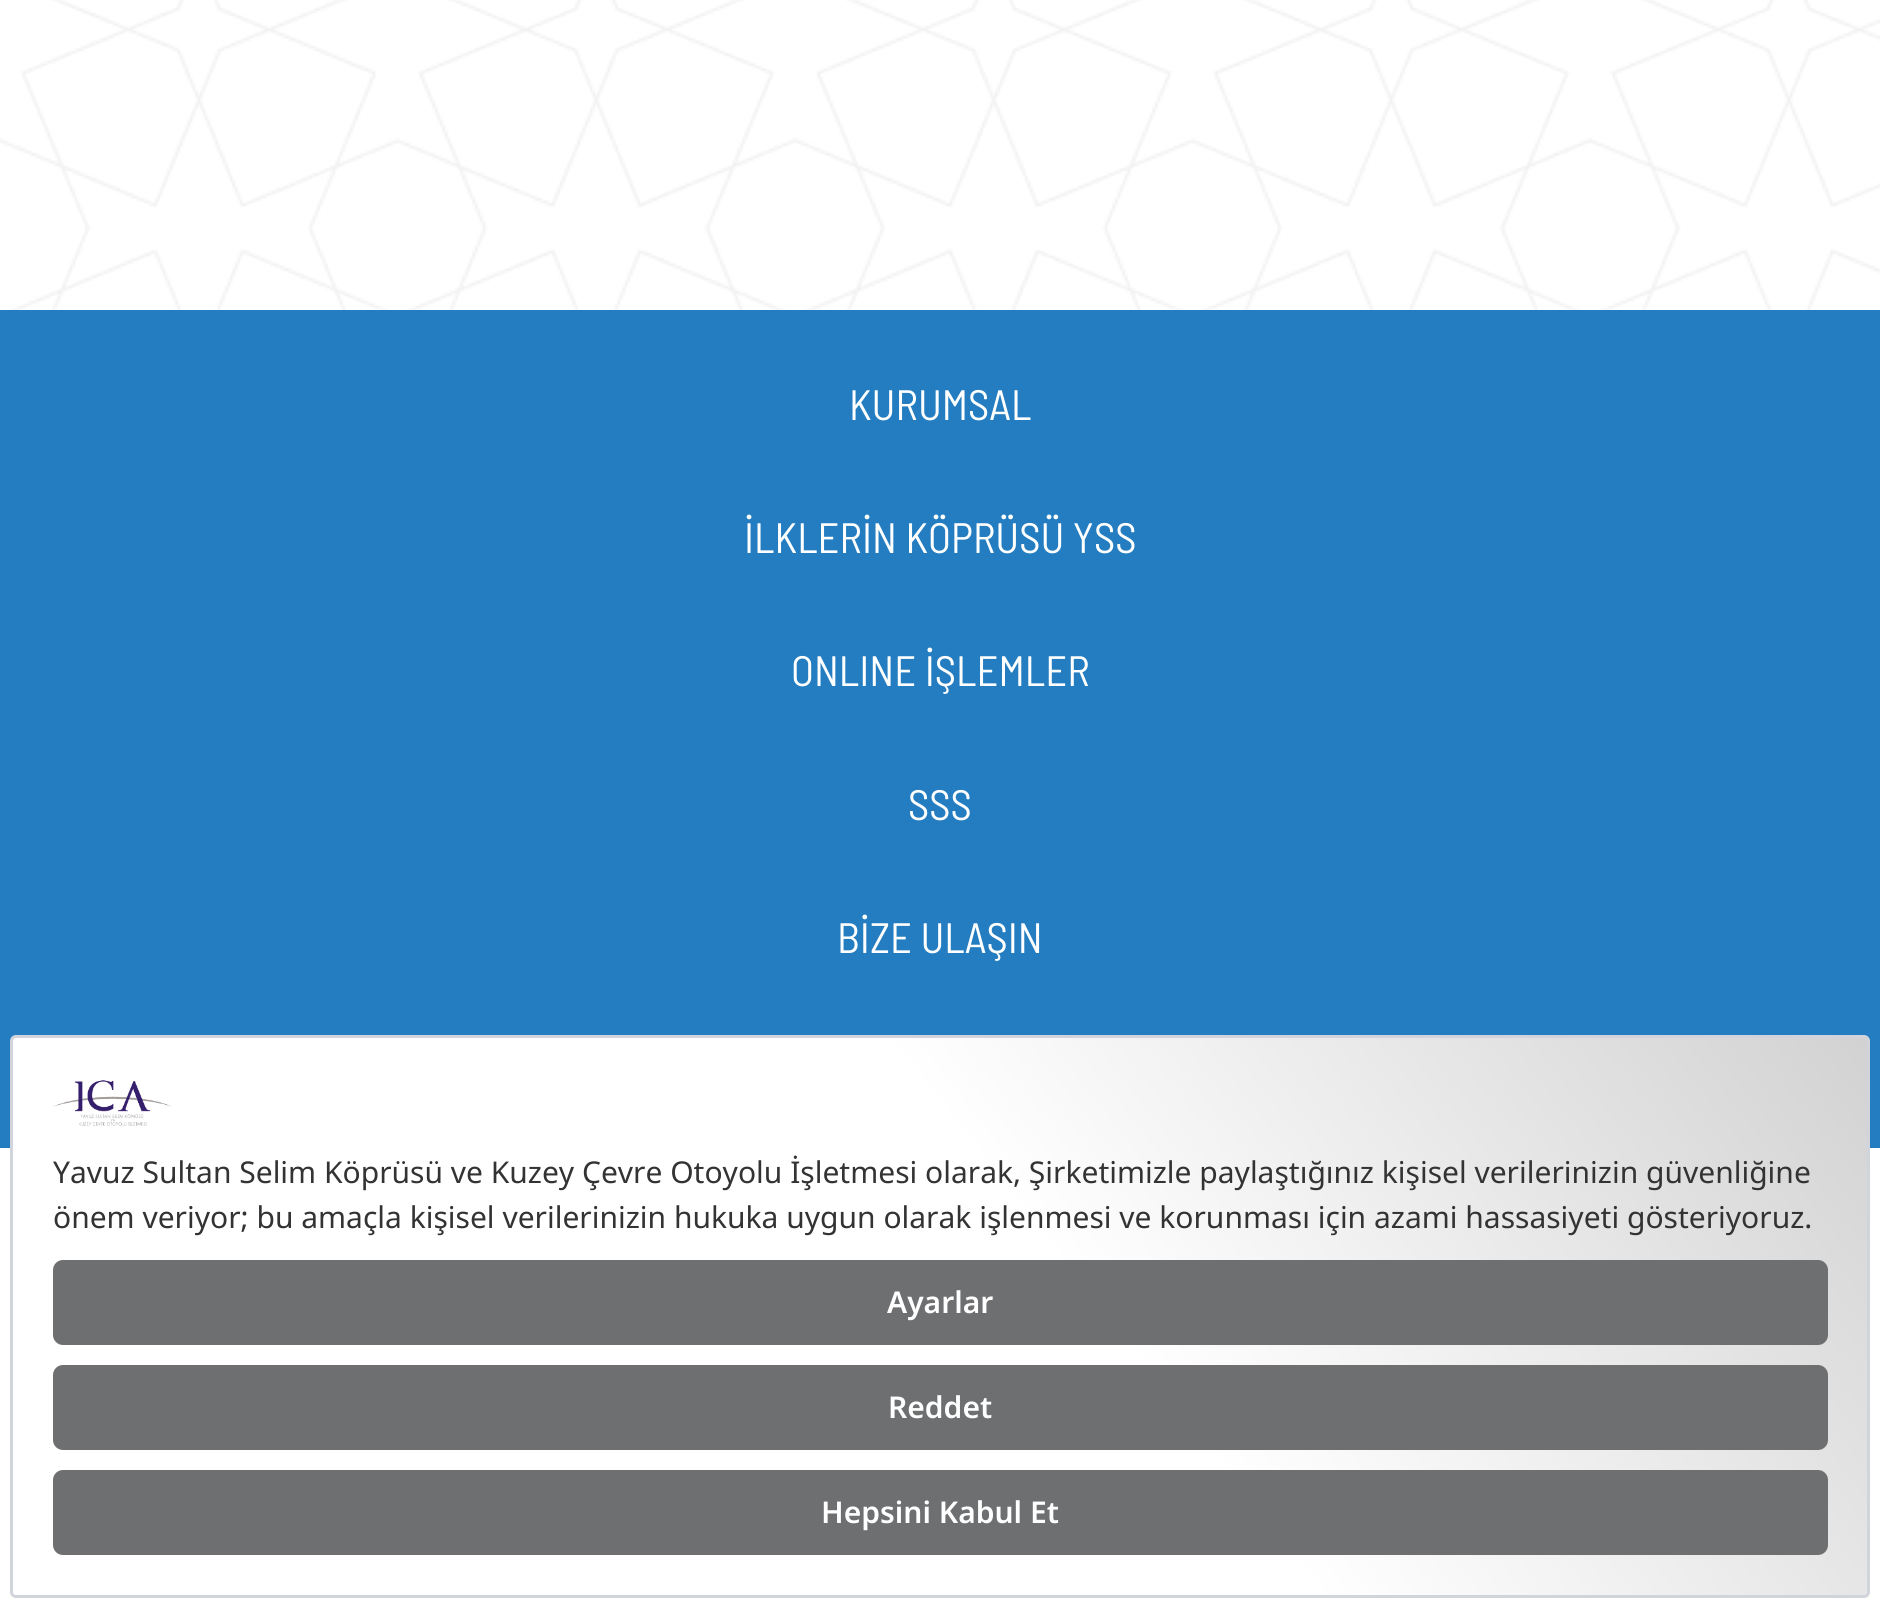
#include <cairo/cairo.h>
#include <math.h>
#include <stddef.h>


static void rounded_rect(cairo_t *cr, double x, double y, double w, double h, double r) {
  cairo_new_sub_path(cr);
  cairo_arc(cr, x + w - r, y + h - r, r, 0, M_PI / 2);
  cairo_arc(cr, x + r, y + h - r, r, M_PI / 2, M_PI);
  cairo_arc(cr, x + r, y + r, r, M_PI, 1.5 * M_PI);
  cairo_arc(cr, x + w - r, y + r, r, 1.5 * M_PI, 2 * M_PI);
  cairo_close_path(cr);
}

static void draw_image(cairo_t *cr, const char *path, double x, double y, double w, double h) {
  cairo_surface_t *image = cairo_image_surface_create_from_png(path);
  cairo_save(cr);
  cairo_set_source_surface(cr, image, x, y);
  cairo_rectangle(cr, x, y, w, h);
  cairo_fill(cr);
  cairo_restore(cr);
  cairo_surface_destroy(image);
}

static void draw(cairo_t *cr) {
  cairo_pattern_t *gradient;
  cairo_set_source_rgb(cr, 1, 1, 1);
  cairo_paint(cr);
  draw_image(cr, "images/1.png", 0, 0, 1880, 310);
  cairo_set_source_rgb(cr, 35 / 255.0, 125 / 255.0, 192 / 255.0);
  cairo_rectangle(cr, 0, 310, 1880, 838);
  cairo_fill(cr);
  gradient = cairo_pattern_create_linear(229, 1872, 1651, 761);
  cairo_pattern_add_color_stop_rgba(gradient, 0, 1, 1, 1, 1);
  cairo_pattern_add_color_stop_rgba(gradient, 0.57, 1, 1, 1, 1);
  cairo_pattern_add_color_stop_rgba(gradient, 1, 210 / 255.0, 210 / 255.0, 210 / 255.0, 1);
  cairo_set_source(cr, gradient);
  cairo_pattern_destroy(gradient);
  cairo_rectangle(cr, 13, 1038, 1854, 557);
  cairo_fill(cr);
  rounded_rect(cr, 11.5, 1036.5, 1857, 560, 4.5);
  cairo_set_source_rgb(cr, 209 / 255.0, 213 / 255.0, 219 / 255.0);
  cairo_set_line_width(cr, 3);
  cairo_stroke(cr);
  draw_image(cr, "images/2.png", 53, 1080, 119, 46);
  cairo_set_source_rgb(cr, 110 / 255.0, 111 / 255.0, 113 / 255.0);
  rounded_rect(cr, 53, 1260, 1775, 85, 10);
  cairo_fill(cr);
  rounded_rect(cr, 53, 1365, 1775, 85, 10);
  cairo_fill(cr);
  rounded_rect(cr, 53, 1470, 1775, 85, 10);
  cairo_fill(cr);
  cairo_select_font_face(cr, "Barlow Semi Condensed", CAIRO_FONT_SLANT_NORMAL, CAIRO_FONT_WEIGHT_NORMAL);
  cairo_set_font_size(cr, 42.5);
  cairo_set_source_rgb(cr, 1, 1, 1);
  cairo_move_to(cr, 849, 420);
  cairo_show_text(cr, "KURUMSAL");
  cairo_move_to(cr, 744, 553);
  cairo_show_text(cr, "İLKLERİN KÖPRÜSÜ YSS");
  cairo_move_to(cr, 791, 686);
  cairo_show_text(cr, "ONLINE İŞLEMLER");
  cairo_move_to(cr, 908, 820);
  cairo_show_text(cr, "SSS");
  cairo_move_to(cr, 837, 953);
  cairo_show_text(cr, "BİZE ULAŞIN");
  cairo_select_font_face(cr, "Noto Sans", CAIRO_FONT_SLANT_NORMAL, CAIRO_FONT_WEIGHT_NORMAL);
  cairo_set_font_size(cr, 30);
  cairo_set_source_rgb(cr, 51 / 255.0, 51 / 255.0, 51 / 255.0);
  cairo_move_to(cr, 53, 1183);
  cairo_show_text(cr, "Yavuz Sultan Selim Köprüsü ve Kuzey Çevre Otoyolu İşletmesi olarak, Şirketimizle paylaştığınız kişisel verilerinizin güvenliğine");
  cairo_move_to(cr, 53, 1228);
  cairo_show_text(cr, "önem veriyor; bu amaçla kişisel verilerinizin hukuka uygun olarak işlenmesi ve korunması için azami hassasiyeti gösteriyoruz.");
  cairo_select_font_face(cr, "Noto Sans SemiBold", CAIRO_FONT_SLANT_NORMAL, CAIRO_FONT_WEIGHT_NORMAL);
  cairo_set_source_rgb(cr, 1, 1, 1);
  cairo_move_to(cr, 887, 1313);
  cairo_show_text(cr, "Ayarlar");
  cairo_move_to(cr, 888, 1418);
  cairo_show_text(cr, "Reddet");
  cairo_move_to(cr, 821, 1523);
  cairo_show_text(cr, "Hepsini Kabul Et");
}

int main(void) {
  cairo_surface_t *surface = cairo_image_surface_create(CAIRO_FORMAT_RGB24, 1880, 1607);
  cairo_t *cr = cairo_create(surface);
  cairo_font_options_t *options = cairo_font_options_create();
  cairo_font_options_set_hint_metrics(options, CAIRO_HINT_METRICS_OFF);
  cairo_font_options_set_hint_style(options, CAIRO_HINT_STYLE_NONE);
  cairo_set_font_options(cr, options);
  cairo_set_miter_limit(cr, 4);
  draw(cr);
  cairo_surface_write_to_png(surface, "out.png");
  cairo_font_options_destroy(options);
  cairo_destroy(cr);
  cairo_surface_destroy(surface);
  return 0;
}
